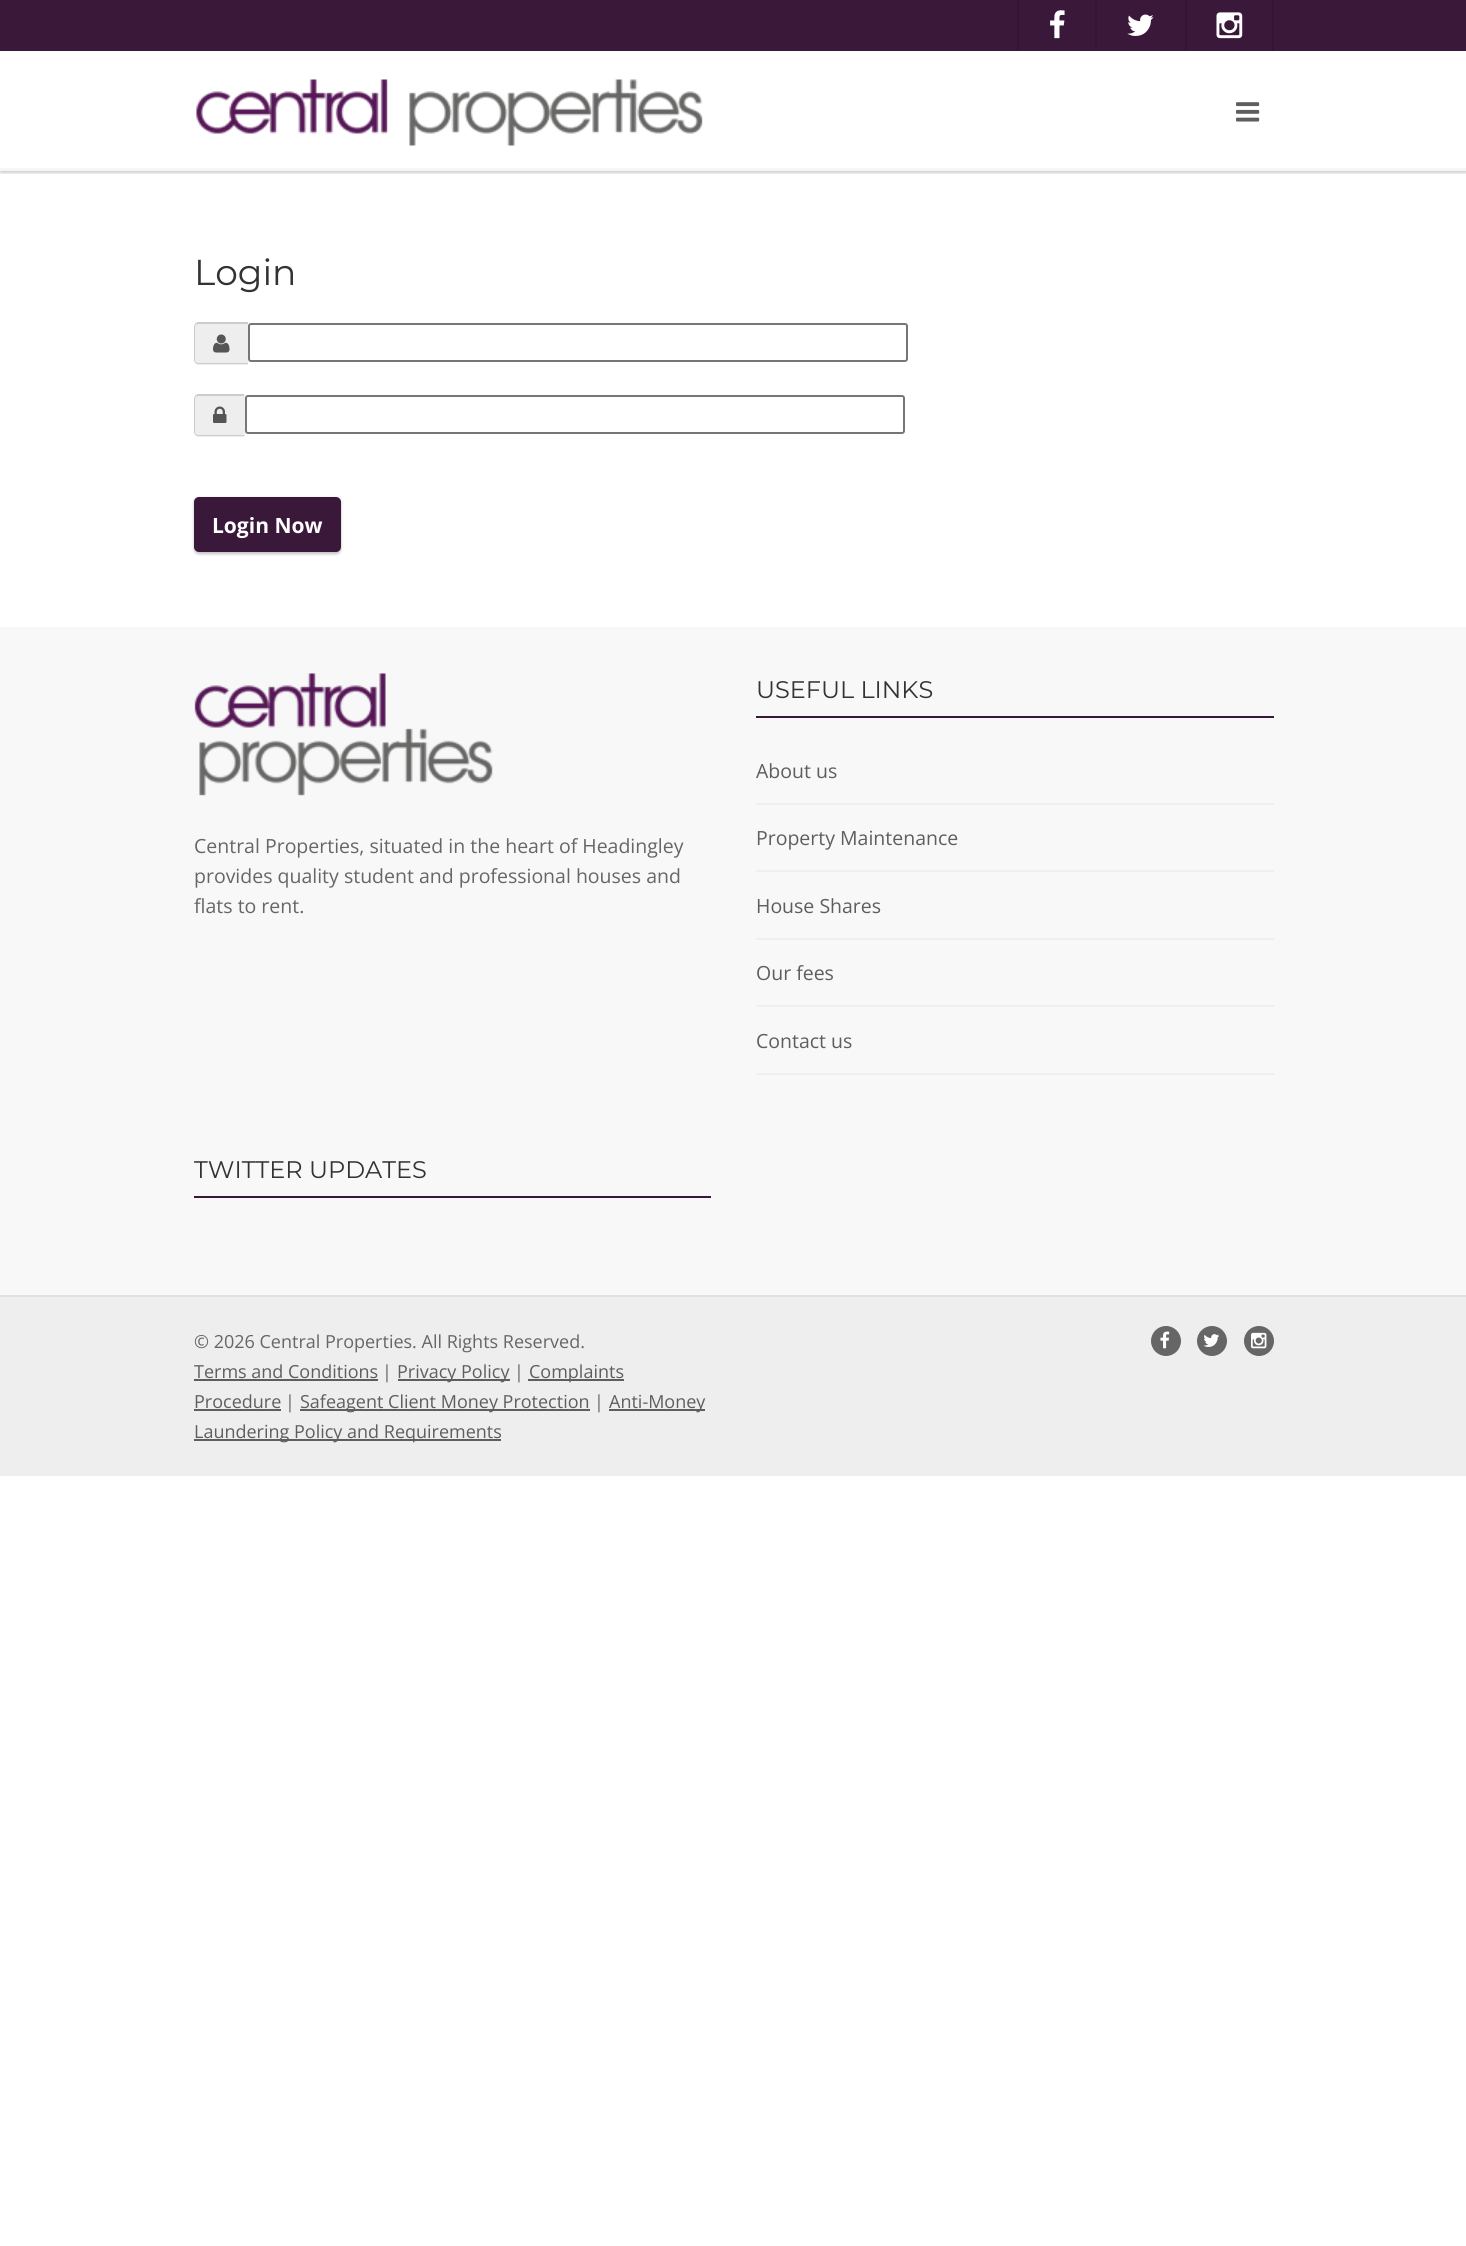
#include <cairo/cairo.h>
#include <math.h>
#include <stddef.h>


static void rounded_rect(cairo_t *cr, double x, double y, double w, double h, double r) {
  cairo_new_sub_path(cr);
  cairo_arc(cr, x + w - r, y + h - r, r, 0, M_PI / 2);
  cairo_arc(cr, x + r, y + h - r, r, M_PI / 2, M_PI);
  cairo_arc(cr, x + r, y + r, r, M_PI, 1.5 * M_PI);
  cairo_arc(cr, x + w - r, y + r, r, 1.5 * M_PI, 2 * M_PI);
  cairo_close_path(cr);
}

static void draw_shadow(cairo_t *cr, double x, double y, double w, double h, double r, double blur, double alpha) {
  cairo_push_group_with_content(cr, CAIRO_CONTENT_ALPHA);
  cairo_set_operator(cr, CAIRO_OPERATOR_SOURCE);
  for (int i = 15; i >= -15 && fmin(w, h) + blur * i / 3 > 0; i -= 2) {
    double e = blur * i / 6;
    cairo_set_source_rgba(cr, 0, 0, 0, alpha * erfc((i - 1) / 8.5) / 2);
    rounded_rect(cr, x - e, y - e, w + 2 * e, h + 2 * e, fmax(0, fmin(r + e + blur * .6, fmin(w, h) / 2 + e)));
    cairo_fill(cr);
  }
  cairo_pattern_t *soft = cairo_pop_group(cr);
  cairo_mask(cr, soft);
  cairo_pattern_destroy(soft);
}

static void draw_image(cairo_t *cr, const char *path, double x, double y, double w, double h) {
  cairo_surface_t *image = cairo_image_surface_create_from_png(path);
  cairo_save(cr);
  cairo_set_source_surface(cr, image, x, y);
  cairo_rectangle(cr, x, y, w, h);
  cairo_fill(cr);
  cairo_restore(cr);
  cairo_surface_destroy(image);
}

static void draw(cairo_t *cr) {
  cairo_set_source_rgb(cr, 1, 1, 1);
  cairo_paint(cr);
  cairo_set_source_rgb(cr, 58 / 255.0, 24 / 255.0, 58 / 255.0);
  cairo_rectangle(cr, 0, 0, 1466, 51);
  cairo_fill(cr);
  cairo_set_source_rgb(cr, 52 / 255.0, 22 / 255.0, 52 / 255.0);
  cairo_rectangle(cr, 1095, 0, 2, 51);
  cairo_fill(cr);
  cairo_rectangle(cr, 1017, 0, 2, 51);
  cairo_fill(cr);
  draw_image(cr, "images/1.png", 1050, 10, 15, 29);
  cairo_rectangle(cr, 1185, 0, 2, 51);
  cairo_fill(cr);
  draw_image(cr, "images/2.png", 1127, 14, 27, 22);
  cairo_rectangle(cr, 1272, 0, 2, 51);
  cairo_fill(cr);
  draw_image(cr, "images/3.png", 1216, 12, 27, 27);
  cairo_save(cr);
  cairo_rectangle(cr, 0, 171, 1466, 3);
  cairo_clip(cr);
  cairo_set_source_rgb(cr, 0, 0, 0);
  draw_shadow(cr, 0, 53, 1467, 120, 0, 1.5, 0.1);
  draw_shadow(cr, 0, 53, 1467, 120, 0, 1.5, 0.1);
  cairo_restore(cr);
  draw_image(cr, "images/4.png", 196, 79, 507, 67);
  draw_image(cr, "images/5.png", 1236, 102, 24, 20);
  cairo_set_source_rgb(cr, 248 / 255.0, 248 / 255.0, 248 / 255.0);
  cairo_rectangle(cr, 0, 627, 1466, 668);
  cairo_fill(cr);
  cairo_save(cr);
  cairo_rectangle(cr, 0, 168, 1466, 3);
  cairo_clip(cr);
  cairo_set_source_rgb(cr, 0, 0, 0);
  draw_shadow(cr, 0, 168, 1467, 456, 0, 1.5, 0.05);
  cairo_restore(cr);
  cairo_set_source_rgb(cr, 238 / 255.0, 238 / 255.0, 238 / 255.0);
  cairo_new_path(cr);
  cairo_move_to(cr, 199, 323);
  cairo_line_to(cr, 248, 323);
  cairo_line_to(cr, 248, 365);
  cairo_line_to(cr, 199, 365);
  cairo_curve_to(cr, 196, 365, 194, 363, 194, 360);
  cairo_line_to(cr, 194, 328);
  cairo_curve_to(cr, 194, 325, 196, 323, 199, 323);
  cairo_close_path(cr);
  cairo_fill(cr);
  cairo_set_source_rgb(cr, 204 / 255.0, 204 / 255.0, 204 / 255.0);
  cairo_set_fill_rule(cr, CAIRO_FILL_RULE_EVEN_ODD);
  cairo_new_path(cr);
  cairo_move_to(cr, 198, 322);
  cairo_line_to(cr, 248, 322);
  cairo_line_to(cr, 248, 364);
  cairo_line_to(cr, 198, 364);
  cairo_curve_to(cr, 196, 364, 194, 362, 194, 360);
  cairo_line_to(cr, 194, 327);
  cairo_curve_to(cr, 194, 325, 196, 322, 198, 322);
  cairo_close_path(cr);
  cairo_move_to(cr, 198, 324);
  cairo_line_to(cr, 248, 324);
  cairo_line_to(cr, 248, 363);
  cairo_line_to(cr, 198, 363);
  cairo_curve_to(cr, 196, 363, 195, 362, 195, 360);
  cairo_line_to(cr, 195, 327);
  cairo_curve_to(cr, 195, 325, 196, 324, 198, 324);
  cairo_close_path(cr);
  cairo_fill(cr);
  draw_image(cr, "images/6.png", 213, 334, 17, 19);
  rounded_rect(cr, 249, 324, 658, 37, 2);
  cairo_set_source_rgb(cr, 118 / 255.0, 118 / 255.0, 118 / 255.0);
  cairo_stroke(cr);
  cairo_set_source_rgb(cr, 238 / 255.0, 238 / 255.0, 238 / 255.0);
  cairo_new_path(cr);
  cairo_move_to(cr, 199, 395);
  cairo_line_to(cr, 245, 395);
  cairo_line_to(cr, 245, 437);
  cairo_line_to(cr, 199, 437);
  cairo_curve_to(cr, 196, 437, 194, 435, 194, 432);
  cairo_line_to(cr, 194, 400);
  cairo_curve_to(cr, 194, 397, 196, 395, 199, 395);
  cairo_close_path(cr);
  cairo_fill(cr);
  cairo_set_source_rgb(cr, 204 / 255.0, 204 / 255.0, 204 / 255.0);
  cairo_new_path(cr);
  cairo_move_to(cr, 198, 394);
  cairo_line_to(cr, 244, 394);
  cairo_line_to(cr, 244, 436);
  cairo_line_to(cr, 198, 436);
  cairo_curve_to(cr, 196, 436, 194, 434, 194, 432);
  cairo_line_to(cr, 194, 399);
  cairo_curve_to(cr, 194, 397, 196, 394, 198, 394);
  cairo_close_path(cr);
  cairo_move_to(cr, 198, 396);
  cairo_line_to(cr, 244, 396);
  cairo_line_to(cr, 244, 435);
  cairo_line_to(cr, 198, 435);
  cairo_curve_to(cr, 196, 435, 195, 434, 195, 432);
  cairo_line_to(cr, 195, 399);
  cairo_curve_to(cr, 195, 397, 196, 396, 198, 396);
  cairo_close_path(cr);
  cairo_fill(cr);
  draw_image(cr, "images/7.png", 213, 406, 14, 17);
  rounded_rect(cr, 246, 396, 658, 37, 2);
  cairo_set_source_rgb(cr, 118 / 255.0, 118 / 255.0, 118 / 255.0);
  cairo_stroke(cr);
  cairo_set_source_rgb(cr, 0, 0, 0);
  draw_shadow(cr, 194, 498, 147, 56, 5, 1.5, 0.25);
  cairo_set_source_rgb(cr, 58 / 255.0, 24 / 255.0, 58 / 255.0);
  rounded_rect(cr, 194, 497, 147, 55, 5);
  cairo_fill(cr);
  draw_image(cr, "images/8.png", 194, 673, 299, 123);
  cairo_rectangle(cr, 756, 716, 518, 2);
  cairo_fill(cr);
  cairo_set_source_rgb(cr, 239 / 255.0, 239 / 255.0, 239 / 255.0);
  cairo_rectangle(cr, 756, 803, 518, 2);
  cairo_fill(cr);
  cairo_rectangle(cr, 756, 870, 518, 2);
  cairo_fill(cr);
  cairo_rectangle(cr, 756, 938, 518, 2);
  cairo_fill(cr);
  cairo_rectangle(cr, 756, 1005, 518, 2);
  cairo_fill(cr);
  cairo_rectangle(cr, 756, 1073, 518, 2);
  cairo_fill(cr);
  cairo_set_source_rgb(cr, 58 / 255.0, 24 / 255.0, 58 / 255.0);
  cairo_rectangle(cr, 194, 1196, 517, 2);
  cairo_fill(cr);
  cairo_set_source_rgb(cr, 238 / 255.0, 238 / 255.0, 238 / 255.0);
  cairo_rectangle(cr, 0, 1297, 1466, 179);
  cairo_fill(cr);
  cairo_set_source_rgb(cr, 225 / 255.0, 225 / 255.0, 225 / 255.0);
  cairo_rectangle(cr, 0, 1295, 1466, 2);
  cairo_fill(cr);
  cairo_set_source_rgb(cr, 94 / 255.0, 94 / 255.0, 94 / 255.0);
  cairo_rectangle(cr, 194, 1379, 184, 2);
  cairo_fill(cr);
  cairo_rectangle(cr, 398, 1379, 112, 2);
  cairo_fill(cr);
  cairo_rectangle(cr, 528, 1379, 96, 2);
  cairo_fill(cr);
  cairo_rectangle(cr, 194, 1409, 87, 2);
  cairo_fill(cr);
  cairo_rectangle(cr, 300, 1409, 290, 2);
  cairo_fill(cr);
  cairo_rectangle(cr, 609, 1409, 96, 2);
  cairo_fill(cr);
  cairo_rectangle(cr, 194, 1439, 307, 2);
  cairo_fill(cr);
  cairo_set_source_rgb(cr, 102 / 255.0, 102 / 255.0, 102 / 255.0);
  cairo_arc(cr, 1166, 1341, 15, 0, 2 * M_PI);
  cairo_fill(cr);
  draw_image(cr, "images/9.png", 1160, 1331, 10, 18);
  cairo_arc(cr, 1212, 1341, 15, 0, 2 * M_PI);
  cairo_fill(cr);
  draw_image(cr, "images/10.png", 1203, 1334, 17, 13);
  cairo_arc(cr, 1259, 1341, 15, 0, 2 * M_PI);
  cairo_fill(cr);
  draw_image(cr, "images/11.png", 1251, 1332, 16, 17);
  cairo_select_font_face(cr, "Montserrat", CAIRO_FONT_SLANT_NORMAL, CAIRO_FONT_WEIGHT_NORMAL);
  cairo_set_font_size(cr, 36);
  cairo_set_source_rgb(cr, 51 / 255.0, 51 / 255.0, 51 / 255.0);
  cairo_move_to(cr, 194, 285);
  cairo_show_text(cr, "Login");
  cairo_select_font_face(cr, "Open Sans", CAIRO_FONT_SLANT_NORMAL, CAIRO_FONT_WEIGHT_BOLD);
  cairo_set_font_size(cr, 21);
  cairo_set_source_rgb(cr, 1, 1, 1);
  cairo_move_to(cr, 212, 533);
  cairo_show_text(cr, "Login Now");
  cairo_select_font_face(cr, "Open Sans", CAIRO_FONT_SLANT_NORMAL, CAIRO_FONT_WEIGHT_NORMAL);
  cairo_set_font_size(cr, 19.5);
  cairo_set_source_rgb(cr, 102 / 255.0, 102 / 255.0, 102 / 255.0);
  cairo_move_to(cr, 194, 853);
  cairo_show_text(cr, "Central Properties, situated in the heart of Headingley");
  cairo_move_to(cr, 194, 883);
  cairo_show_text(cr, "provides quality student and professional houses and");
  cairo_move_to(cr, 194, 913);
  cairo_show_text(cr, "flats to rent.");
  cairo_select_font_face(cr, "Montserrat", CAIRO_FONT_SLANT_NORMAL, CAIRO_FONT_WEIGHT_NORMAL);
  cairo_set_font_size(cr, 24);
  cairo_set_source_rgb(cr, 51 / 255.0, 51 / 255.0, 51 / 255.0);
  cairo_move_to(cr, 756, 698);
  cairo_show_text(cr, "USEFUL LINKS");
  cairo_select_font_face(cr, "Open Sans", CAIRO_FONT_SLANT_NORMAL, CAIRO_FONT_WEIGHT_NORMAL);
  cairo_set_font_size(cr, 19.5);
  cairo_set_source_rgb(cr, 94 / 255.0, 94 / 255.0, 94 / 255.0);
  cairo_move_to(cr, 756, 778);
  cairo_show_text(cr, "About us");
  cairo_move_to(cr, 756, 845);
  cairo_show_text(cr, "Property Maintenance");
  cairo_move_to(cr, 756, 913);
  cairo_show_text(cr, "House Shares");
  cairo_move_to(cr, 756, 980);
  cairo_show_text(cr, "Our fees");
  cairo_move_to(cr, 756, 1048);
  cairo_show_text(cr, "Contact us");
  cairo_select_font_face(cr, "Montserrat", CAIRO_FONT_SLANT_NORMAL, CAIRO_FONT_WEIGHT_NORMAL);
  cairo_set_font_size(cr, 24);
  cairo_set_source_rgb(cr, 51 / 255.0, 51 / 255.0, 51 / 255.0);
  cairo_move_to(cr, 194, 1178);
  cairo_show_text(cr, "TWITTER UPDATES");
  cairo_select_font_face(cr, "Open Sans", CAIRO_FONT_SLANT_NORMAL, CAIRO_FONT_WEIGHT_NORMAL);
  cairo_set_font_size(cr, 18);
  cairo_set_source_rgb(cr, 102 / 255.0, 102 / 255.0, 102 / 255.0);
  cairo_move_to(cr, 194, 1348);
  cairo_show_text(cr, "© 2026 Central Properties. All Rights Reserved.");
  cairo_set_source_rgb(cr, 94 / 255.0, 94 / 255.0, 94 / 255.0);
  cairo_move_to(cr, 194, 1378);
  cairo_show_text(cr, "Terms and Conditions");
  cairo_set_source_rgb(cr, 102 / 255.0, 102 / 255.0, 102 / 255.0);
  cairo_move_to(cr, 382, 1378);
  cairo_show_text(cr, "|");
  cairo_set_source_rgb(cr, 94 / 255.0, 94 / 255.0, 94 / 255.0);
  cairo_move_to(cr, 397, 1378);
  cairo_show_text(cr, "Privacy Policy");
  cairo_set_source_rgb(cr, 102 / 255.0, 102 / 255.0, 102 / 255.0);
  cairo_move_to(cr, 514, 1378);
  cairo_show_text(cr, "|");
  cairo_set_source_rgb(cr, 94 / 255.0, 94 / 255.0, 94 / 255.0);
  cairo_move_to(cr, 529, 1378);
  cairo_show_text(cr, "Complaints");
  cairo_move_to(cr, 194, 1408);
  cairo_show_text(cr, "Procedure");
  cairo_set_source_rgb(cr, 102 / 255.0, 102 / 255.0, 102 / 255.0);
  cairo_move_to(cr, 285, 1408);
  cairo_show_text(cr, "|");
  cairo_set_source_rgb(cr, 94 / 255.0, 94 / 255.0, 94 / 255.0);
  cairo_move_to(cr, 300, 1408);
  cairo_show_text(cr, "Safeagent Client Money Protection");
  cairo_set_source_rgb(cr, 102 / 255.0, 102 / 255.0, 102 / 255.0);
  cairo_move_to(cr, 594, 1408);
  cairo_show_text(cr, "|");
  cairo_set_source_rgb(cr, 94 / 255.0, 94 / 255.0, 94 / 255.0);
  cairo_move_to(cr, 609, 1408);
  cairo_show_text(cr, "Anti-Money");
  cairo_move_to(cr, 194, 1438);
  cairo_show_text(cr, "Laundering Policy and Requirements");
}

int main(void) {
  cairo_surface_t *surface = cairo_image_surface_create(CAIRO_FORMAT_RGB24, 1466, 2246);
  cairo_t *cr = cairo_create(surface);
  cairo_font_options_t *options = cairo_font_options_create();
  cairo_font_options_set_hint_metrics(options, CAIRO_HINT_METRICS_OFF);
  cairo_font_options_set_hint_style(options, CAIRO_HINT_STYLE_NONE);
  cairo_set_font_options(cr, options);
  cairo_set_miter_limit(cr, 4);
  draw(cr);
  cairo_surface_write_to_png(surface, "out.png");
  cairo_font_options_destroy(options);
  cairo_destroy(cr);
  cairo_surface_destroy(surface);
  return 0;
}
